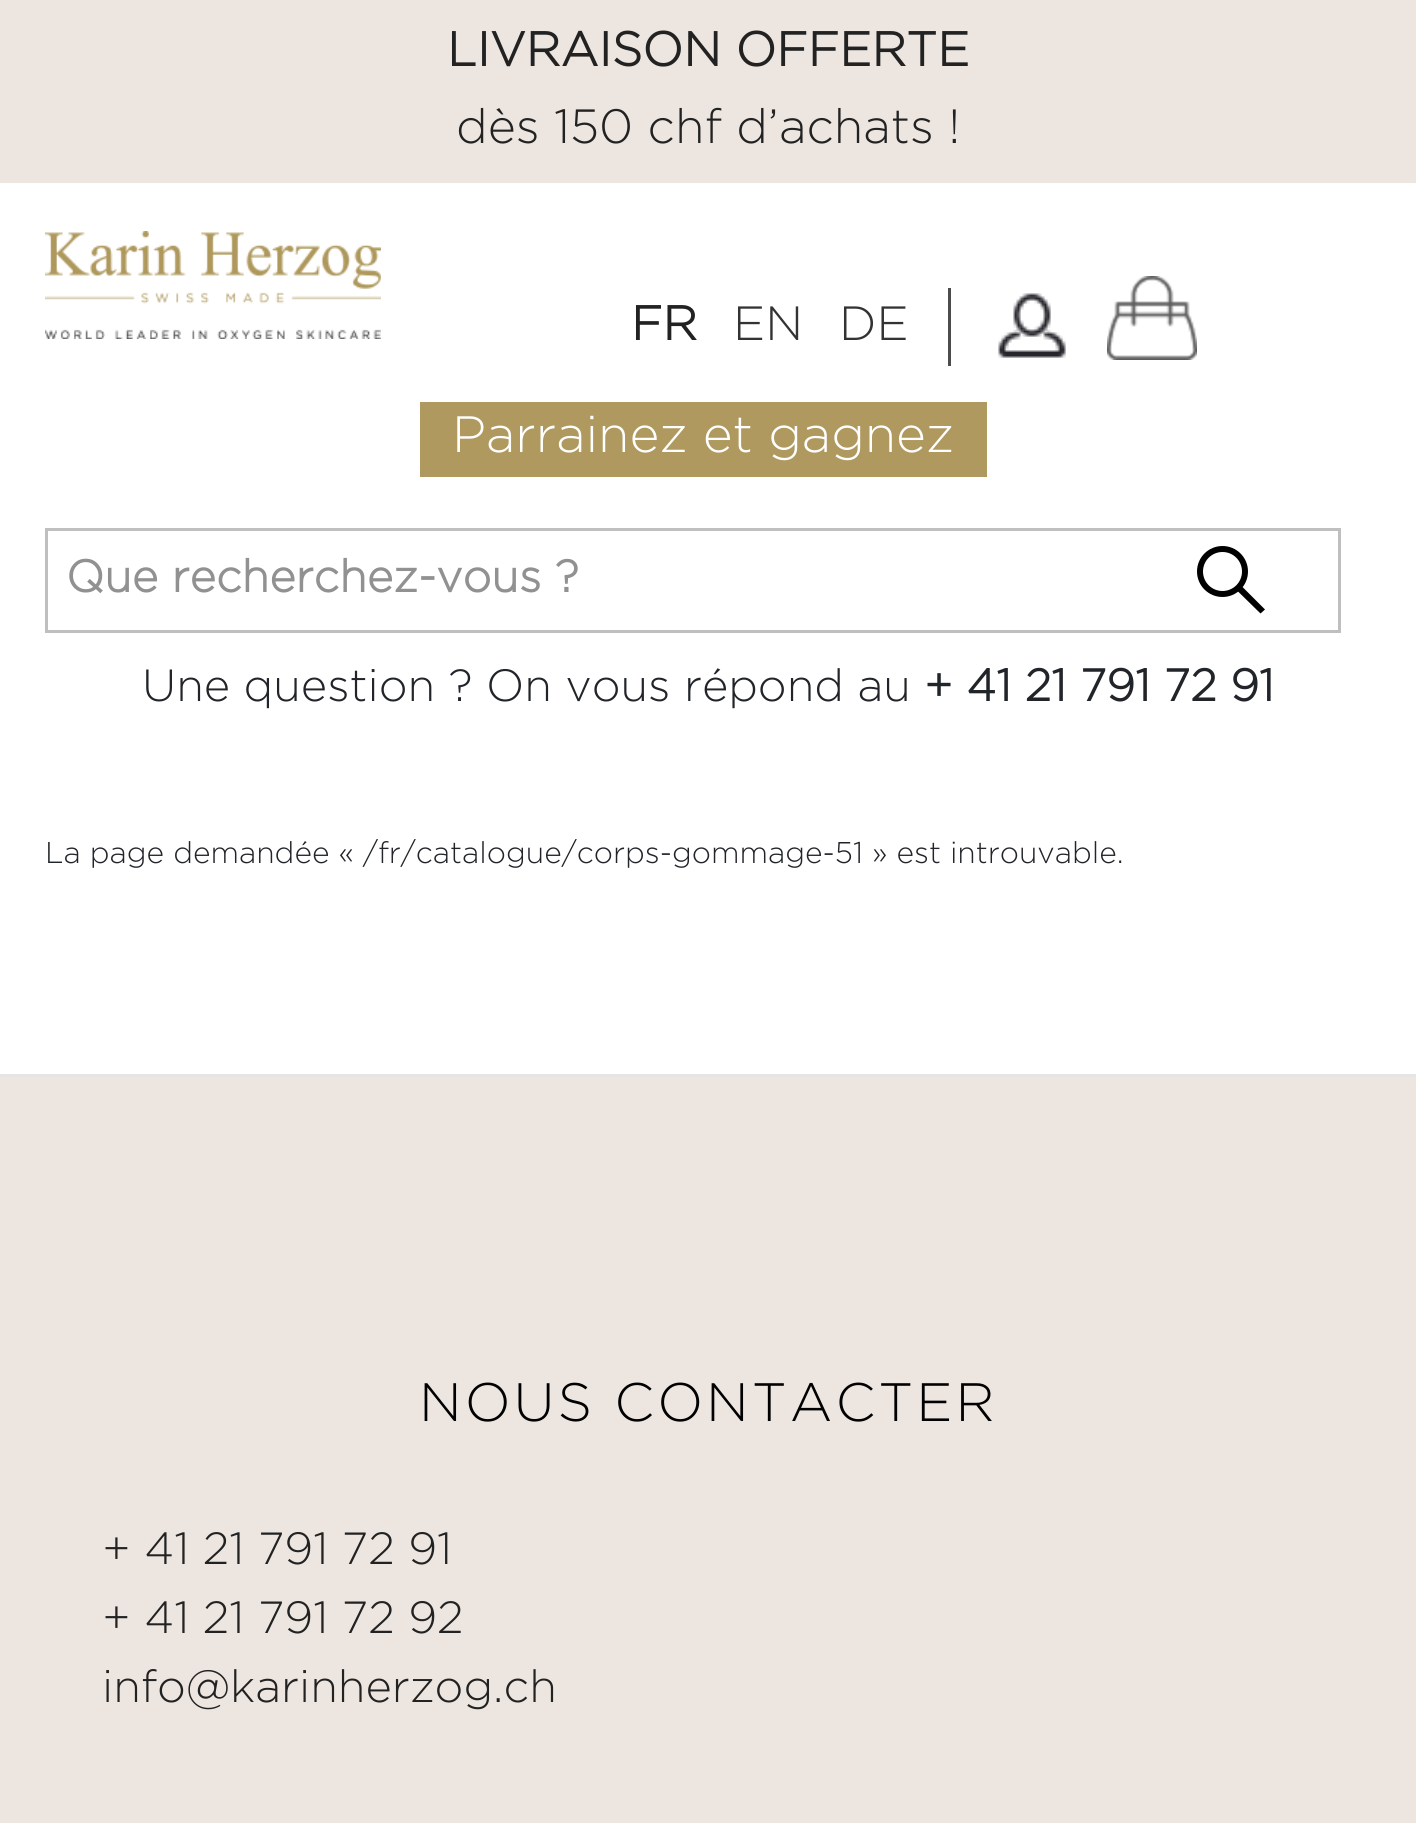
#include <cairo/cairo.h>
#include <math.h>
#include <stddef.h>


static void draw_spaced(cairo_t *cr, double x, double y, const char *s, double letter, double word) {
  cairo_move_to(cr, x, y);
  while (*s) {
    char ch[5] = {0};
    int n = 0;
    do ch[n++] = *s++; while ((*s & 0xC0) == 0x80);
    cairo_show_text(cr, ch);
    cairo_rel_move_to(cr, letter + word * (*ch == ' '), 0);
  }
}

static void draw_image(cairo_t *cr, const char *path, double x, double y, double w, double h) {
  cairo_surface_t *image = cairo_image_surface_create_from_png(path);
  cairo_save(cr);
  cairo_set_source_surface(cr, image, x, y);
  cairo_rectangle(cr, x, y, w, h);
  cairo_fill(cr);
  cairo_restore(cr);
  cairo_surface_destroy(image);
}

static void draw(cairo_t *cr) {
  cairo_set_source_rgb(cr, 1, 1, 1);
  cairo_paint(cr);
  cairo_set_source_rgb(cr, 236 / 255.0, 229 / 255.0, 224 / 255.0);
  cairo_rectangle(cr, 0, 0, 1416, 183);
  cairo_fill(cr);
  draw_image(cr, "images/1.png", 45, 231, 336, 108);
  cairo_set_source_rgb(cr, 76 / 255.0, 76 / 255.0, 76 / 255.0);
  cairo_rectangle(cr, 948, 288, 3, 78);
  cairo_fill(cr);
  draw_image(cr, "images/2.png", 998, 293, 68, 65);
  draw_image(cr, "images/3.png", 1107, 276, 90, 84);
  cairo_set_source_rgb(cr, 175 / 255.0, 153 / 255.0, 94 / 255.0);
  cairo_rectangle(cr, 420, 402, 567, 75);
  cairo_fill(cr);
  cairo_rectangle(cr, 46.5, 529.5, 1293, 102);
  cairo_set_source_rgb(cr, 191 / 255.0, 191 / 255.0, 191 / 255.0);
  cairo_set_line_width(cr, 3);
  cairo_stroke(cr);
  cairo_set_source_rgb(cr, 0, 0, 0);
  cairo_new_path(cr);
  cairo_move_to(cr, 1241.5, 586);
  cairo_line_to(cr, 1265, 609.5);
  cairo_line_to(cr, 1260.5, 613.5);
  cairo_line_to(cr, 1237, 590.5);
  cairo_close_path(cr);
  cairo_fill(cr);
  cairo_arc(cr, 1222.5, 571.5, 22.5, 0, 2 * M_PI);
  cairo_set_line_width(cr, 6);
  cairo_stroke(cr);
  cairo_set_source_rgb(cr, 237 / 255.0, 230 / 255.0, 224 / 255.0);
  cairo_rectangle(cr, 0, 1077, 1416, 746);
  cairo_fill(cr);
  cairo_set_source_rgb(cr, 229 / 255.0, 229 / 255.0, 229 / 255.0);
  cairo_rectangle(cr, 0, 1074, 1416, 3);
  cairo_fill(cr);
  cairo_select_font_face(cr, "Gotham", CAIRO_FONT_SLANT_NORMAL, CAIRO_FONT_WEIGHT_BOLD);
  cairo_set_font_size(cr, 48);
  cairo_set_source_rgb(cr, 34 / 255.0, 34 / 255.0, 34 / 255.0);
  cairo_move_to(cr, 447, 66);
  cairo_show_text(cr, "LIVRAISON OFFERTE");
  cairo_select_font_face(cr, "Gotham Light", CAIRO_FONT_SLANT_NORMAL, CAIRO_FONT_WEIGHT_NORMAL);
  cairo_move_to(cr, 456, 143);
  cairo_show_text(cr, "dès 150 chf d’achats !");
  cairo_select_font_face(cr, "Gotham", CAIRO_FONT_SLANT_NORMAL, CAIRO_FONT_WEIGHT_BOLD);
  cairo_move_to(cr, 631, 340);
  cairo_show_text(cr, "FR");
  cairo_select_font_face(cr, "Gotham Light", CAIRO_FONT_SLANT_NORMAL, CAIRO_FONT_WEIGHT_NORMAL);
  cairo_set_source_rgb(cr, 51 / 255.0, 51 / 255.0, 51 / 255.0);
  cairo_move_to(cr, 733, 340);
  cairo_show_text(cr, "EN");
  cairo_move_to(cr, 839, 340);
  cairo_show_text(cr, "DE");
  cairo_set_font_size(cr, 51);
  cairo_set_source_rgb(cr, 1, 1, 1);
  cairo_move_to(cr, 452, 452);
  cairo_show_text(cr, "Parrainez et gagnez");
  cairo_select_font_face(cr, "Gotham", CAIRO_FONT_SLANT_NORMAL, CAIRO_FONT_WEIGHT_BOLD);
  cairo_set_font_size(cr, 45);
  cairo_set_source_rgb(cr, 145 / 255.0, 145 / 255.0, 145 / 255.0);
  cairo_move_to(cr, 66, 592);
  cairo_show_text(cr, "Que recherchez-vous ?");
  cairo_select_font_face(cr, "Gotham Light", CAIRO_FONT_SLANT_NORMAL, CAIRO_FONT_WEIGHT_NORMAL);
  cairo_set_source_rgb(cr, 33 / 255.0, 37 / 255.0, 41 / 255.0);
  cairo_move_to(cr, 142, 701);
  cairo_show_text(cr, "Une question ? On vous répond au");
  cairo_select_font_face(cr, "Gotham", CAIRO_FONT_SLANT_NORMAL, CAIRO_FONT_WEIGHT_BOLD);
  cairo_move_to(cr, 924, 701);
  cairo_show_text(cr, "+ 41 21 791 72 91");
  cairo_select_font_face(cr, "Gotham Light", CAIRO_FONT_SLANT_NORMAL, CAIRO_FONT_WEIGHT_NORMAL);
  cairo_set_font_size(cr, 30);
  cairo_move_to(cr, 45, 863);
  cairo_show_text(cr, "La page demandée « /fr/catalogue/corps-gommage-51 » est introuvable.");
  cairo_set_font_size(cr, 54);
  cairo_set_source_rgb(cr, 0, 0, 0);
  draw_spaced(cr, 419, 1421, "NOUS CONTACTER", 3, 0);
  cairo_set_font_size(cr, 45);
  cairo_set_source_rgb(cr, 34 / 255.0, 34 / 255.0, 34 / 255.0);
  cairo_move_to(cr, 102, 1564);
  cairo_show_text(cr, "+ 41 21 791 72 91");
  cairo_move_to(cr, 102, 1633);
  cairo_show_text(cr, "+ 41 21 791 72 92");
  cairo_move_to(cr, 102, 1702);
  cairo_show_text(cr, "info@karinherzog.ch");
}

int main(void) {
  cairo_surface_t *surface = cairo_image_surface_create(CAIRO_FORMAT_RGB24, 1416, 1823);
  cairo_t *cr = cairo_create(surface);
  cairo_font_options_t *options = cairo_font_options_create();
  cairo_font_options_set_hint_metrics(options, CAIRO_HINT_METRICS_OFF);
  cairo_font_options_set_hint_style(options, CAIRO_HINT_STYLE_NONE);
  cairo_set_font_options(cr, options);
  cairo_set_miter_limit(cr, 4);
  draw(cr);
  cairo_surface_write_to_png(surface, "out.png");
  cairo_font_options_destroy(options);
  cairo_destroy(cr);
  cairo_surface_destroy(surface);
  return 0;
}
